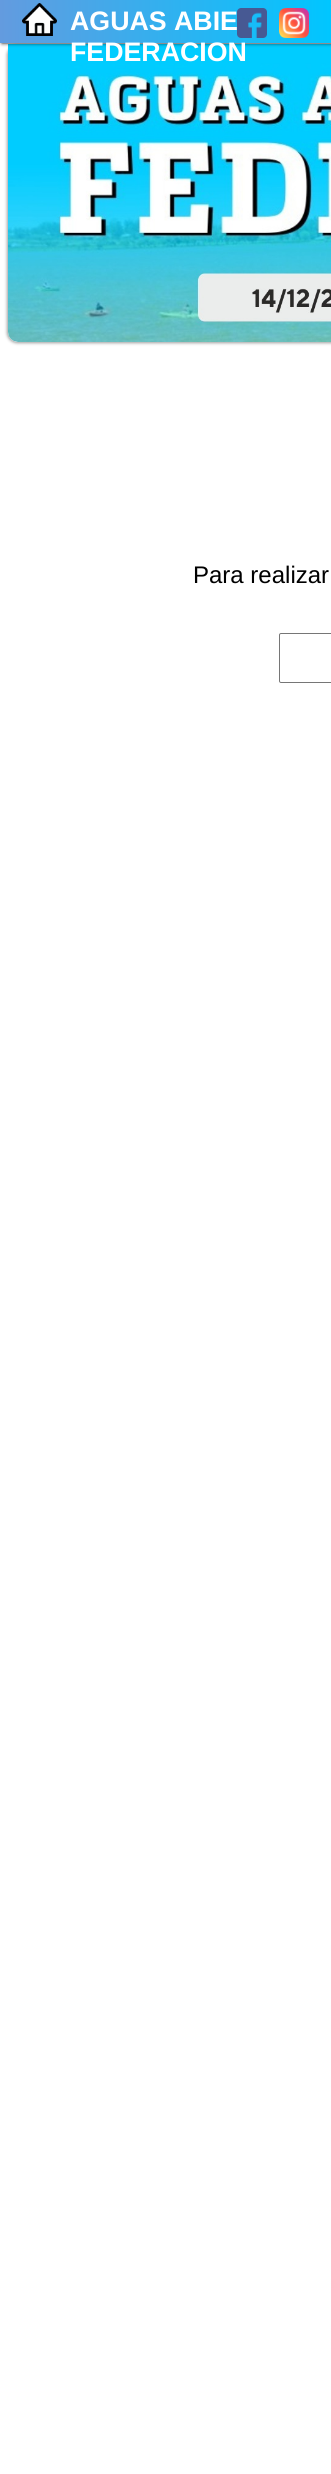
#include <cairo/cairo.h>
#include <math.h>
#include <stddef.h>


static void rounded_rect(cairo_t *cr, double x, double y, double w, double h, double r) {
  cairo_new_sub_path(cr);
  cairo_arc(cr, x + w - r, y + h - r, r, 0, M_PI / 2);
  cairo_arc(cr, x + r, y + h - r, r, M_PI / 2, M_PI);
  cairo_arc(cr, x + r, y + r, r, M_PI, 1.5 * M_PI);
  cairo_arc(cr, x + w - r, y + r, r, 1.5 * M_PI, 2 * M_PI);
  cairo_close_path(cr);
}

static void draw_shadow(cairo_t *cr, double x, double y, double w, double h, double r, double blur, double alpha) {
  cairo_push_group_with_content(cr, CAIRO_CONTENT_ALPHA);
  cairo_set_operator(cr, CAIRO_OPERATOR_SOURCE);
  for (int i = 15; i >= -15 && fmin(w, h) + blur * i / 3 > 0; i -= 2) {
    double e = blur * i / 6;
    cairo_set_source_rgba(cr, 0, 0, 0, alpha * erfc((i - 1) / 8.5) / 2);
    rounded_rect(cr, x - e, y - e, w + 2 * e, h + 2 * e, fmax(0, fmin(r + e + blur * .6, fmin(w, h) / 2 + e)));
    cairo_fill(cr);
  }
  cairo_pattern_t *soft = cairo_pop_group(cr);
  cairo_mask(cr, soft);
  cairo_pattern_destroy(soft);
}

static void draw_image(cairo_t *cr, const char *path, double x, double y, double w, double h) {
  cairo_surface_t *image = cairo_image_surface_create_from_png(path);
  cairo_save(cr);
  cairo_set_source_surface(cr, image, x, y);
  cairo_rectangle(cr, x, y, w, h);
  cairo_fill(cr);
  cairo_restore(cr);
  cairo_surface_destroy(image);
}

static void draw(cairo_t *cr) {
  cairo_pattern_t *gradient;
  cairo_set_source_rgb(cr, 1, 1, 1);
  cairo_paint(cr);
  cairo_set_source_rgb(cr, 159 / 255.0, 159 / 255.0, 159 / 255.0);
  draw_shadow(cr, 7, 45, 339, 298, 10, 1.5, 1);
  cairo_set_source_rgb(cr, 1, 1, 1);
  cairo_new_path(cr);
  cairo_move_to(cr, 8, 44);
  cairo_line_to(cr, 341, 44);
  cairo_line_to(cr, 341, 332);
  cairo_curve_to(cr, 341, 337.5, 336.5, 342, 331, 342);
  cairo_line_to(cr, 18, 342);
  cairo_curve_to(cr, 12.5, 342, 8, 337.5, 8, 332);
  cairo_close_path(cr);
  cairo_fill(cr);
  draw_image(cr, "images/4.png", 8, 44, 323, 298);
  cairo_set_source_rgb(cr, 0, 0, 0);
  draw_shadow(cr, 2, 0, 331, 43, 0, 2, 1);
  gradient = cairo_pattern_create_linear(0, 22, 331, 21);
  cairo_pattern_add_color_stop_rgba(gradient, 0, 99 / 255.0, 155 / 255.0, 223 / 255.0, 1);
  cairo_pattern_add_color_stop_rgba(gradient, 1, 0, 198 / 255.0, 1, 1);
  cairo_set_source(cr, gradient);
  cairo_pattern_destroy(gradient);
  cairo_rectangle(cr, 0, 0, 331, 43);
  cairo_fill(cr);
  draw_image(cr, "images/1.png", 22, 3, 35, 33);
  draw_image(cr, "images/2.png", 237, 8, 30, 30);
  draw_image(cr, "images/3.png", 279, 8, 30, 30);
  rounded_rect(cr, 279.5, 633.5, 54, 49, 1.5);
  cairo_set_source_rgb(cr, 118 / 255.0, 118 / 255.0, 118 / 255.0);
  cairo_set_line_width(cr, 1);
  cairo_stroke(cr);
  cairo_select_font_face(cr, "Liberation Sans", CAIRO_FONT_SLANT_NORMAL, CAIRO_FONT_WEIGHT_BOLD);
  cairo_set_font_size(cr, 26.75);
  cairo_set_source_rgb(cr, 1, 1, 1);
  cairo_move_to(cr, 70, 30);
  cairo_show_text(cr, "AGUAS ABIE");
  cairo_move_to(cr, 70, 61);
  cairo_show_text(cr, "FEDERACION");
  cairo_select_font_face(cr, "Liberation Sans", CAIRO_FONT_SLANT_NORMAL, CAIRO_FONT_WEIGHT_NORMAL);
  cairo_set_font_size(cr, 24);
  cairo_set_source_rgb(cr, 0, 0, 0);
  cairo_move_to(cr, 193, 583);
  cairo_show_text(cr, "Para realizar");
}

int main(void) {
  cairo_surface_t *surface = cairo_image_surface_create(CAIRO_FORMAT_RGB24, 331, 2474);
  cairo_t *cr = cairo_create(surface);
  cairo_font_options_t *options = cairo_font_options_create();
  cairo_font_options_set_hint_metrics(options, CAIRO_HINT_METRICS_OFF);
  cairo_font_options_set_hint_style(options, CAIRO_HINT_STYLE_NONE);
  cairo_set_font_options(cr, options);
  cairo_set_miter_limit(cr, 4);
  draw(cr);
  cairo_surface_write_to_png(surface, "out.png");
  cairo_font_options_destroy(options);
  cairo_destroy(cr);
  cairo_surface_destroy(surface);
  return 0;
}
